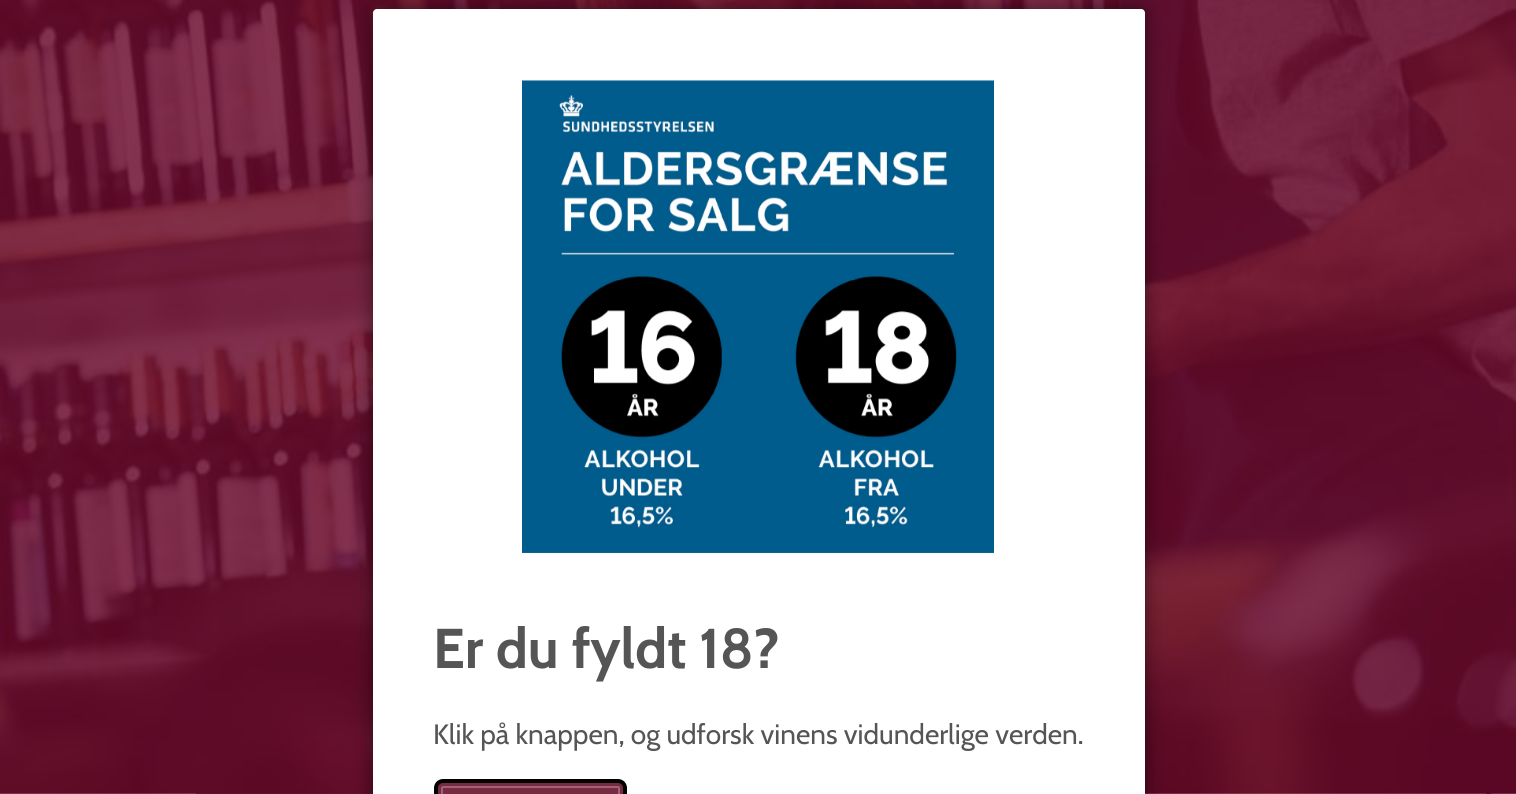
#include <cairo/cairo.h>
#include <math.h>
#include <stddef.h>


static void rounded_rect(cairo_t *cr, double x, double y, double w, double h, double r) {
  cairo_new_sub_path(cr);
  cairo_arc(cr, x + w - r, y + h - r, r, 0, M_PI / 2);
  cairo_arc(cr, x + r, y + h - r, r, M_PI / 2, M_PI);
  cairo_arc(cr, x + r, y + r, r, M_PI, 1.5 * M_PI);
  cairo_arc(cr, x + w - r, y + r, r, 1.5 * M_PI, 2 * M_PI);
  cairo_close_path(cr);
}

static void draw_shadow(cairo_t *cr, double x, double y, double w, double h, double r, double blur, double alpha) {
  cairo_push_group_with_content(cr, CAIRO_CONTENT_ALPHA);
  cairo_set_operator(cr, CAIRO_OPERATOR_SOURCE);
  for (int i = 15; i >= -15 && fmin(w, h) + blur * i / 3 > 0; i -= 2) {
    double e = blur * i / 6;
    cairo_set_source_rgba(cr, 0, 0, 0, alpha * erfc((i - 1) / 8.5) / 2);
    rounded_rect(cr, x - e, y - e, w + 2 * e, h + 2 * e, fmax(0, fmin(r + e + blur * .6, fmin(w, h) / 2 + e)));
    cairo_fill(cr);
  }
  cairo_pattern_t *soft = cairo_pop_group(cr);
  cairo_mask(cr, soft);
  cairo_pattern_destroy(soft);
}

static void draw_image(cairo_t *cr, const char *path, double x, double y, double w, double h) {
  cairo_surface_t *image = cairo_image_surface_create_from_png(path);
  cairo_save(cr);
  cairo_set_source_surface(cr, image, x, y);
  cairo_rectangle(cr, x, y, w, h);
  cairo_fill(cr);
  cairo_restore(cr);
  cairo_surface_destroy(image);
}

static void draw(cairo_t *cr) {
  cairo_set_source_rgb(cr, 1, 1, 1);
  cairo_paint(cr);
  draw_image(cr, "images/1.png", 196, 793, 177, 1);
  cairo_rectangle(cr, 819.5, 531.5, 669, 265);
  cairo_set_source_rgb(cr, 107 / 255.0, 9 / 255.0, 43 / 255.0);
  cairo_set_line_width(cr, 5);
  cairo_stroke(cr);
  draw_image(cr, "images/2.png", 0, 0, 1516, 794);
  cairo_set_source_rgb(cr, 0, 0, 0);
  draw_shadow(cr, 373, 9, 772, 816, 4, 9, 0.5);
  cairo_set_source_rgb(cr, 1, 1, 1);
  rounded_rect(cr, 373, 9, 772, 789, 4);
  cairo_fill(cr);
  draw_image(cr, "images/3.png", 522, 80, 472, 473);
  cairo_set_source_rgb(cr, 120 / 255.0, 42 / 255.0, 67 / 255.0);
  rounded_rect(cr, 436, 781, 189, 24, 7);
  cairo_fill_preserve(cr);
  cairo_set_source_rgb(cr, 0, 0, 0);
  cairo_set_line_width(cr, 4);
  cairo_stroke(cr);
  rounded_rect(cr, 442, 787, 177, 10, 1);
  cairo_set_source_rgb(cr, 156 / 255.0, 100 / 255.0, 118 / 255.0);
  cairo_set_line_width(cr, 2);
  cairo_stroke(cr);
  cairo_select_font_face(cr, "Cabin", CAIRO_FONT_SLANT_NORMAL, CAIRO_FONT_WEIGHT_BOLD);
  cairo_set_font_size(cr, 56);
  cairo_set_source_rgb(cr, 85 / 255.0, 85 / 255.0, 85 / 255.0);
  cairo_move_to(cr, 433, 668);
  cairo_show_text(cr, "Er du fyldt 18?");
  cairo_select_font_face(cr, "Cabin", CAIRO_FONT_SLANT_NORMAL, CAIRO_FONT_WEIGHT_NORMAL);
  cairo_set_font_size(cr, 28);
  cairo_move_to(cr, 433, 744);
  cairo_show_text(cr, "Klik på knappen, og udforsk vinens vidunderlige verden.");
}

int main(void) {
  cairo_surface_t *surface = cairo_image_surface_create(CAIRO_FORMAT_RGB24, 1516, 794);
  cairo_t *cr = cairo_create(surface);
  cairo_font_options_t *options = cairo_font_options_create();
  cairo_font_options_set_hint_metrics(options, CAIRO_HINT_METRICS_OFF);
  cairo_font_options_set_hint_style(options, CAIRO_HINT_STYLE_NONE);
  cairo_set_font_options(cr, options);
  cairo_set_miter_limit(cr, 4);
  draw(cr);
  cairo_surface_write_to_png(surface, "out.png");
  cairo_font_options_destroy(options);
  cairo_destroy(cr);
  cairo_surface_destroy(surface);
  return 0;
}
